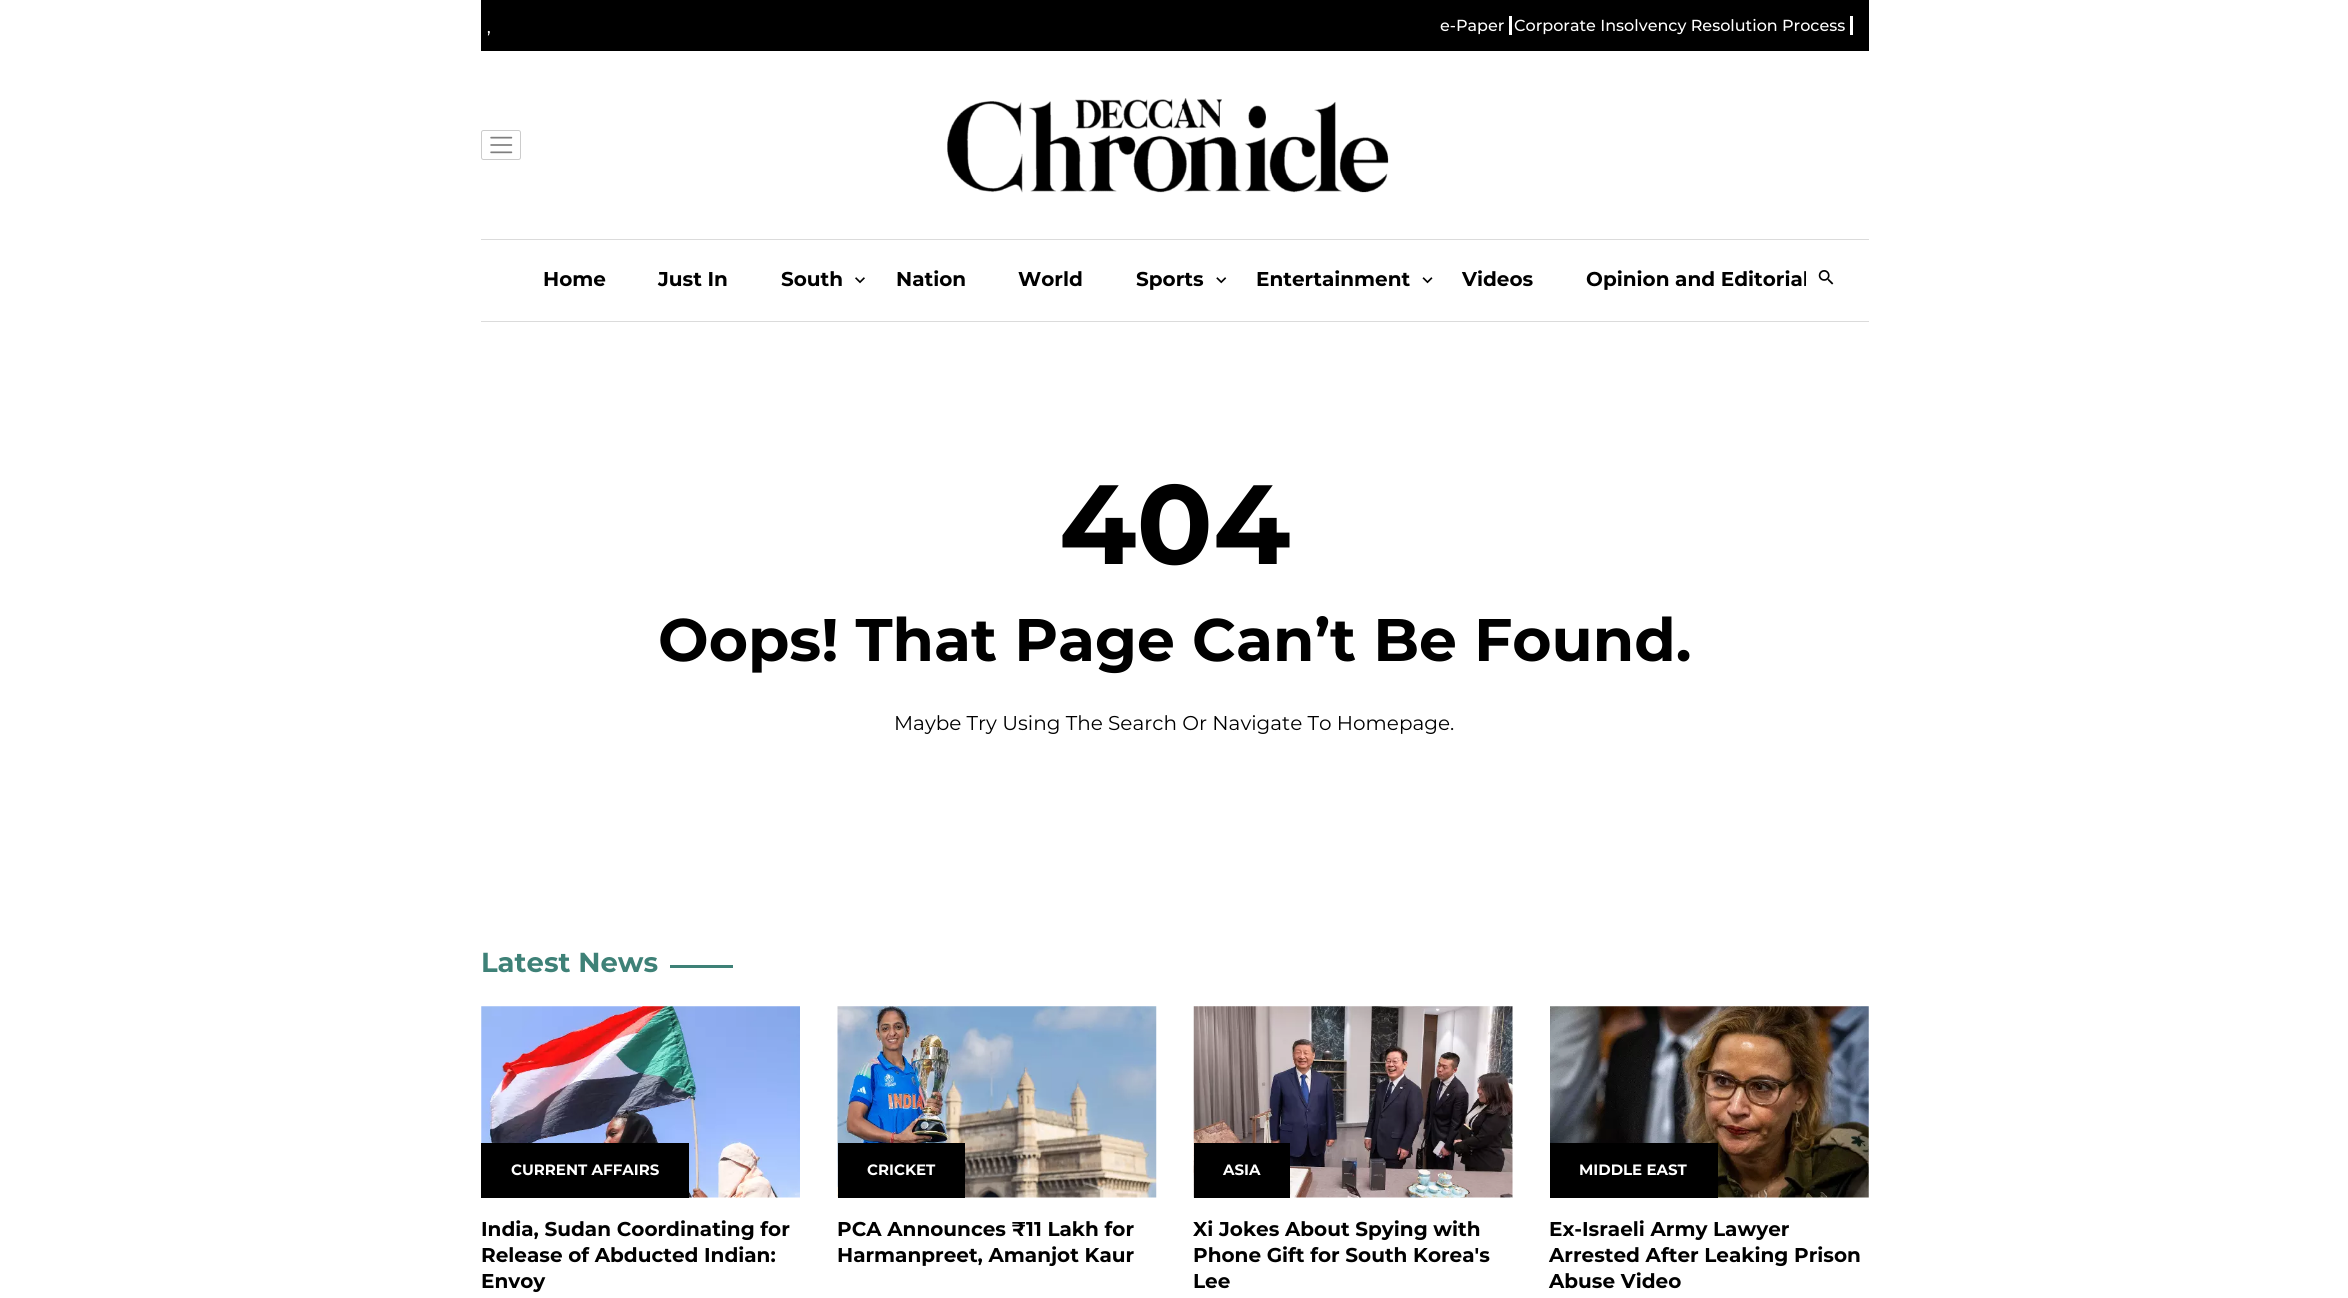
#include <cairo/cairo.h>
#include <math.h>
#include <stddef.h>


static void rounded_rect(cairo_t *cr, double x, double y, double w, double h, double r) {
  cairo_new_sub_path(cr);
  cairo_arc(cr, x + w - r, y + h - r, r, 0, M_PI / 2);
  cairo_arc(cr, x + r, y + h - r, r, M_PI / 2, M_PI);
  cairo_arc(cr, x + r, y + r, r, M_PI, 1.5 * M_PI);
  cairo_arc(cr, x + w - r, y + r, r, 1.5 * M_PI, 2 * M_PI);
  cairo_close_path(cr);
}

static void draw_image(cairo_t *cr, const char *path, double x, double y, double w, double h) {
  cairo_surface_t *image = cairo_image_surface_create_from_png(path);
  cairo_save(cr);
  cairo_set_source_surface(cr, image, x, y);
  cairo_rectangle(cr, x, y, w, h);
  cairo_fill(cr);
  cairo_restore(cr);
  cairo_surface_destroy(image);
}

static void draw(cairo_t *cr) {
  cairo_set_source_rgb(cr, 1, 1, 1);
  cairo_paint(cr);
  cairo_set_source_rgb(cr, 0, 0, 0);
  cairo_rectangle(cr, 481, 0, 1388, 51);
  cairo_fill(cr);
  cairo_set_source_rgb(cr, 1, 1, 1);
  cairo_rectangle(cr, 1509, 16, 3, 19);
  cairo_fill(cr);
  cairo_rectangle(cr, 1850, 16, 3, 19);
  cairo_fill(cr);
  cairo_set_source_rgb(cr, 219 / 255.0, 219 / 255.0, 219 / 255.0);
  cairo_rectangle(cr, 481, 239, 1388, 1);
  cairo_fill(cr);
  draw_image(cr, "images/1.png", 490, 136, 23, 18);
  rounded_rect(cr, 481.5, 130.5, 39, 29, 2);
  cairo_set_source_rgb(cr, 204 / 255.0, 204 / 255.0, 204 / 255.0);
  cairo_set_line_width(cr, 1);
  cairo_stroke(cr);
  draw_image(cr, "images/2.png", 947, 98, 442, 95);
  cairo_set_source_rgb(cr, 219 / 255.0, 219 / 255.0, 219 / 255.0);
  cairo_rectangle(cr, 481, 321, 1388, 1);
  cairo_fill(cr);
  draw_image(cr, "images/3.png", 855, 277, 10, 7);
  draw_image(cr, "images/4.png", 1216, 277, 11, 7);
  draw_image(cr, "images/5.png", 1422, 277, 11, 7);
  draw_image(cr, "images/6.png", 1818, 270, 16, 15);
  cairo_set_source_rgb(cr, 62 / 255.0, 129 / 255.0, 119 / 255.0);
  cairo_rectangle(cr, 670, 965, 63, 3);
  cairo_fill(cr);
  draw_image(cr, "images/7.png", 481, 1006, 319, 192);
  cairo_set_source_rgb(cr, 0, 0, 0);
  cairo_rectangle(cr, 481, 1143, 208, 55);
  cairo_fill(cr);
  draw_image(cr, "images/8.png", 837, 1006, 320, 192);
  cairo_rectangle(cr, 838, 1143, 127, 55);
  cairo_fill(cr);
  draw_image(cr, "images/9.png", 1193, 1006, 320, 192);
  cairo_rectangle(cr, 1194, 1143, 96, 55);
  cairo_fill(cr);
  draw_image(cr, "images/10.png", 1550, 1006, 319, 192);
  cairo_rectangle(cr, 1550, 1143, 168, 55);
  cairo_fill(cr);
  cairo_select_font_face(cr, "Montserrat Medium", CAIRO_FONT_SLANT_NORMAL, CAIRO_FONT_WEIGHT_NORMAL);
  cairo_set_font_size(cr, 16);
  cairo_set_source_rgb(cr, 1, 1, 1);
  cairo_move_to(cr, 487, 33);
  cairo_show_text(cr, ",");
  cairo_move_to(cr, 1440, 31);
  cairo_show_text(cr, "e-Paper");
  cairo_move_to(cr, 1514, 31);
  cairo_show_text(cr, "Corporate Insolvency Resolution Process");
  cairo_select_font_face(cr, "Montserrat", CAIRO_FONT_SLANT_NORMAL, CAIRO_FONT_WEIGHT_BOLD);
  cairo_set_font_size(cr, 20);
  cairo_set_source_rgb(cr, 0, 0, 0);
  cairo_move_to(cr, 543, 286);
  cairo_show_text(cr, "Home");
  cairo_move_to(cr, 658, 286);
  cairo_show_text(cr, "Just In");
  cairo_move_to(cr, 781, 286);
  cairo_show_text(cr, "South");
  cairo_move_to(cr, 896, 286);
  cairo_show_text(cr, "Nation");
  cairo_move_to(cr, 1018, 286);
  cairo_show_text(cr, "World");
  cairo_move_to(cr, 1136, 286);
  cairo_show_text(cr, "Sports");
  cairo_move_to(cr, 1256, 286);
  cairo_show_text(cr, "Entertainment");
  cairo_move_to(cr, 1462, 286);
  cairo_show_text(cr, "Videos");
  cairo_save(cr);
  cairo_rectangle(cr, 544, 240, 1262, 81);
  cairo_clip(cr);
  cairo_move_to(cr, 1586, 286);
  cairo_show_text(cr, "Opinion and Editorial");
  cairo_restore(cr);
  cairo_set_font_size(cr, 112.5);
  cairo_move_to(cr, 1059, 564);
  cairo_show_text(cr, "404");
  cairo_set_font_size(cr, 60);
  cairo_move_to(cr, 658, 661);
  cairo_show_text(cr, "Oops! That Page Can’t Be Found.");
  cairo_select_font_face(cr, "Montserrat", CAIRO_FONT_SLANT_NORMAL, CAIRO_FONT_WEIGHT_NORMAL);
  cairo_set_font_size(cr, 20);
  cairo_move_to(cr, 894, 730);
  cairo_show_text(cr, "Maybe Try Using The Search Or Navigate To Homepage.");
  cairo_select_font_face(cr, "Montserrat", CAIRO_FONT_SLANT_NORMAL, CAIRO_FONT_WEIGHT_BOLD);
  cairo_set_font_size(cr, 27.5);
  cairo_set_source_rgb(cr, 62 / 255.0, 129 / 255.0, 119 / 255.0);
  cairo_move_to(cr, 481, 972);
  cairo_show_text(cr, "Latest News");
  cairo_set_font_size(cr, 15);
  cairo_set_source_rgb(cr, 1, 1, 1);
  cairo_move_to(cr, 511, 1175);
  cairo_show_text(cr, "CURRENT AFFAIRS");
  cairo_set_font_size(cr, 20);
  cairo_set_source_rgb(cr, 0, 0, 0);
  cairo_move_to(cr, 481, 1236);
  cairo_show_text(cr, "India, Sudan Coordinating for");
  cairo_move_to(cr, 481, 1262);
  cairo_show_text(cr, "Release of Abducted Indian:");
  cairo_move_to(cr, 481, 1288);
  cairo_show_text(cr, "Envoy");
  cairo_set_font_size(cr, 15);
  cairo_set_source_rgb(cr, 1, 1, 1);
  cairo_move_to(cr, 867, 1175);
  cairo_show_text(cr, "CRICKET");
  cairo_set_font_size(cr, 20);
  cairo_set_source_rgb(cr, 0, 0, 0);
  cairo_move_to(cr, 837, 1236);
  cairo_show_text(cr, "PCA Announces ₹11 Lakh for");
  cairo_move_to(cr, 837, 1262);
  cairo_show_text(cr, "Harmanpreet, Amanjot Kaur");
  cairo_set_font_size(cr, 15);
  cairo_set_source_rgb(cr, 1, 1, 1);
  cairo_move_to(cr, 1223, 1175);
  cairo_show_text(cr, "ASIA");
  cairo_set_font_size(cr, 20);
  cairo_set_source_rgb(cr, 0, 0, 0);
  cairo_move_to(cr, 1193, 1236);
  cairo_show_text(cr, "Xi Jokes About Spying with");
  cairo_move_to(cr, 1193, 1262);
  cairo_show_text(cr, "Phone Gift for South Korea's");
  cairo_move_to(cr, 1193, 1288);
  cairo_show_text(cr, "Lee");
  cairo_set_font_size(cr, 15);
  cairo_set_source_rgb(cr, 1, 1, 1);
  cairo_move_to(cr, 1579, 1175);
  cairo_show_text(cr, "MIDDLE EAST");
  cairo_set_font_size(cr, 20);
  cairo_set_source_rgb(cr, 0, 0, 0);
  cairo_move_to(cr, 1549, 1236);
  cairo_show_text(cr, "Ex-Israeli Army Lawyer");
  cairo_move_to(cr, 1549, 1262);
  cairo_show_text(cr, "Arrested After Leaking Prison");
  cairo_move_to(cr, 1549, 1288);
  cairo_show_text(cr, "Abuse Video");
}

int main(void) {
  cairo_surface_t *surface = cairo_image_surface_create(CAIRO_FORMAT_RGB24, 2348, 1298);
  cairo_t *cr = cairo_create(surface);
  cairo_font_options_t *options = cairo_font_options_create();
  cairo_font_options_set_hint_metrics(options, CAIRO_HINT_METRICS_OFF);
  cairo_font_options_set_hint_style(options, CAIRO_HINT_STYLE_NONE);
  cairo_set_font_options(cr, options);
  cairo_set_miter_limit(cr, 4);
  draw(cr);
  cairo_surface_write_to_png(surface, "out.png");
  cairo_font_options_destroy(options);
  cairo_destroy(cr);
  cairo_surface_destroy(surface);
  return 0;
}
